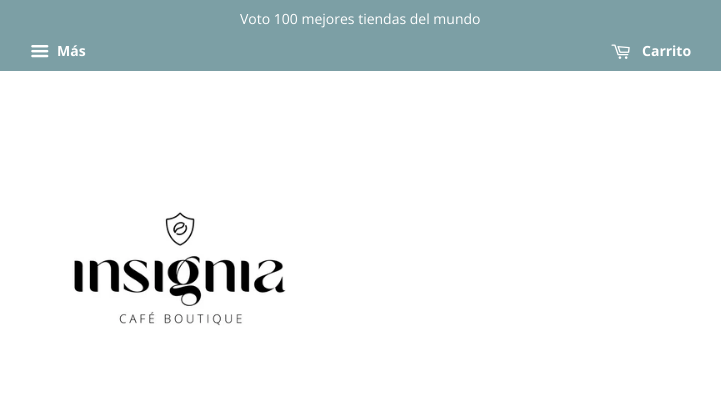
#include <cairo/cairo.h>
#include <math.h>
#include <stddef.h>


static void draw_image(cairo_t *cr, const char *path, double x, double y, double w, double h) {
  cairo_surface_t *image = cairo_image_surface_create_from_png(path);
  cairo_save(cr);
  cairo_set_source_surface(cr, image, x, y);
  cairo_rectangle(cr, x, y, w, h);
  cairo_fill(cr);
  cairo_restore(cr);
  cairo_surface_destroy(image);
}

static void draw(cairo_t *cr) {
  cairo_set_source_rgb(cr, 1, 1, 1);
  cairo_paint(cr);
  cairo_set_source_rgb(cr, 124 / 255.0, 159 / 255.0, 165 / 255.0);
  cairo_rectangle(cr, 0, 0, 721, 71);
  cairo_fill(cr);
  draw_image(cr, "images/1.png", 31, 45, 18, 13);
  draw_image(cr, "images/2.png", 611, 44, 19, 15);
  draw_image(cr, "images/3.png", 72, 211, 214, 115);
  cairo_select_font_face(cr, "Open Sans", CAIRO_FONT_SLANT_NORMAL, CAIRO_FONT_WEIGHT_NORMAL);
  cairo_set_font_size(cr, 14);
  cairo_set_source_rgb(cr, 1, 1, 1);
  cairo_move_to(cr, 240, 24);
  cairo_show_text(cr, "Voto 100 mejores tiendas del mundo");
  cairo_select_font_face(cr, "Open Sans", CAIRO_FONT_SLANT_NORMAL, CAIRO_FONT_WEIGHT_BOLD);
  cairo_move_to(cr, 57, 56);
  cairo_show_text(cr, "Más");
  cairo_move_to(cr, 642, 56);
  cairo_show_text(cr, "Carrito");
}

int main(void) {
  cairo_surface_t *surface = cairo_image_surface_create(CAIRO_FORMAT_RGB24, 721, 397);
  cairo_t *cr = cairo_create(surface);
  cairo_font_options_t *options = cairo_font_options_create();
  cairo_font_options_set_hint_metrics(options, CAIRO_HINT_METRICS_OFF);
  cairo_font_options_set_hint_style(options, CAIRO_HINT_STYLE_NONE);
  cairo_set_font_options(cr, options);
  cairo_set_miter_limit(cr, 4);
  draw(cr);
  cairo_surface_write_to_png(surface, "out.png");
  cairo_font_options_destroy(options);
  cairo_destroy(cr);
  cairo_surface_destroy(surface);
  return 0;
}
